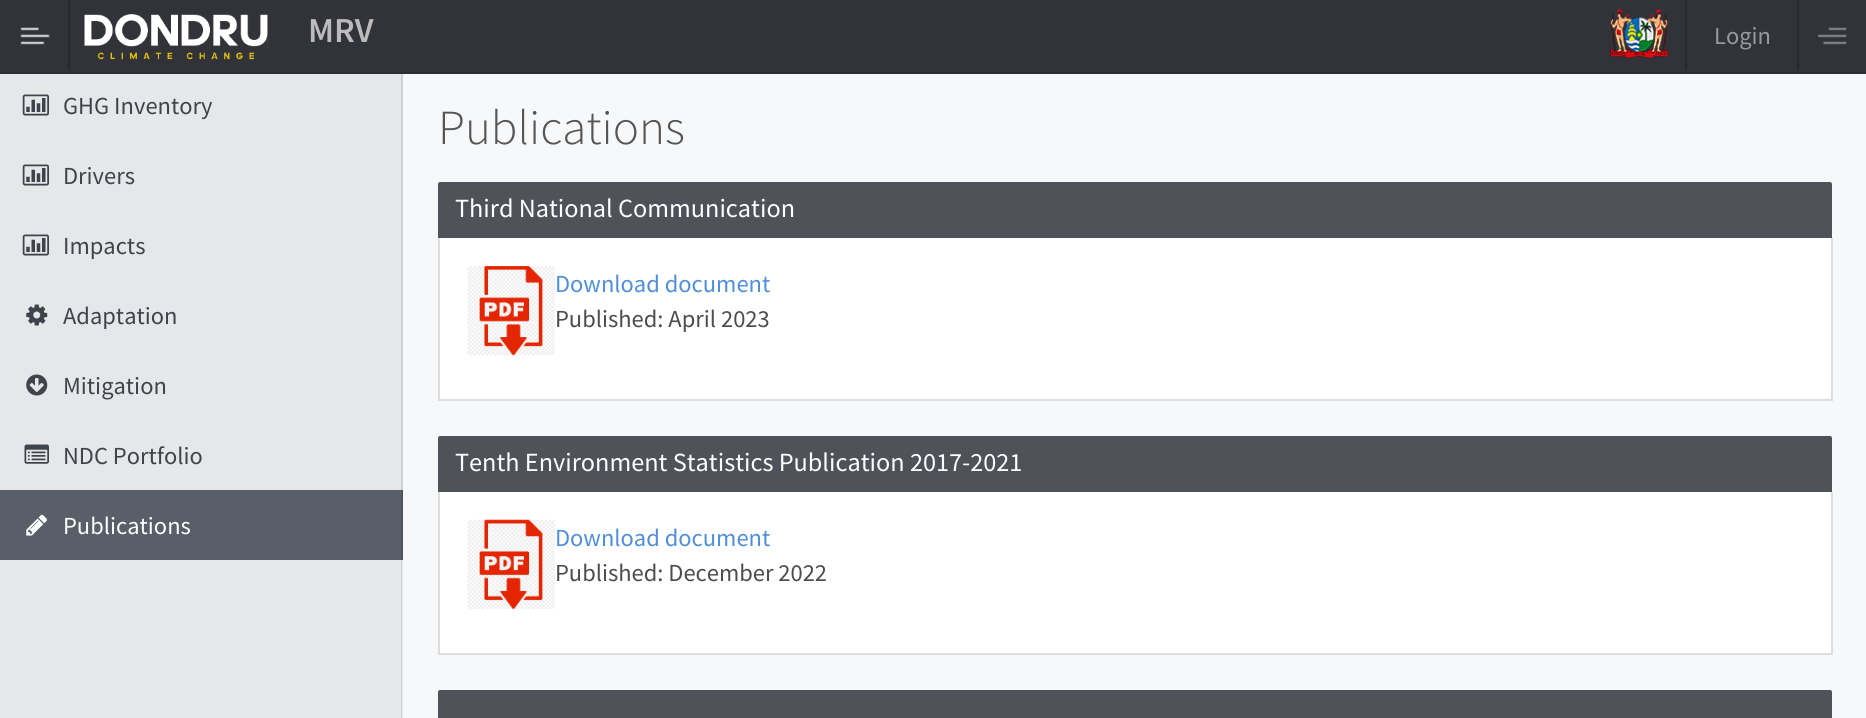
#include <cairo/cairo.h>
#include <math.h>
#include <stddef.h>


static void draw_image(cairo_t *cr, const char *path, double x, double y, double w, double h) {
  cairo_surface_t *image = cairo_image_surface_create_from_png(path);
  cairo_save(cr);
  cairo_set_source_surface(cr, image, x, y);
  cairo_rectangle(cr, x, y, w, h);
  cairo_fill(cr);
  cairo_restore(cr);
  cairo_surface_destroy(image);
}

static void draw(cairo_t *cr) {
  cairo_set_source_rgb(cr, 230 / 255.0, 231 / 255.0, 232 / 255.0);
  cairo_paint(cr);
  cairo_set_source_rgb(cr, 207 / 255.0, 208 / 255.0, 209 / 255.0);
  cairo_rectangle(cr, 401, 70, 2, 420);
  cairo_fill(cr);
  cairo_set_source_rgb(cr, 49 / 255.0, 51 / 255.0, 56 / 255.0);
  cairo_rectangle(cr, 0, 0, 1866, 72);
  cairo_fill(cr);
  cairo_set_source_rgb(cr, 44 / 255.0, 46 / 255.0, 50 / 255.0);
  cairo_rectangle(cr, 0, 72, 1866, 2);
  cairo_fill(cr);
  draw_image(cr, "images/1.png", 20, 27, 30, 18);
  cairo_set_source_rgb(cr, 39 / 255.0, 41 / 255.0, 45 / 255.0);
  cairo_rectangle(cr, 68, 0, 2, 70);
  cairo_fill(cr);
  draw_image(cr, "images/2.png", 84, 14, 184, 46);
  draw_image(cr, "images/3.png", 1610, 8, 58, 50);
  cairo_rectangle(cr, 1685, 0, 2, 70);
  cairo_fill(cr);
  draw_image(cr, "images/4.png", 1817, 27, 30, 18);
  cairo_rectangle(cr, 1797, 0, 2, 70);
  cairo_fill(cr);
  draw_image(cr, "images/5.png", 22, 94, 27, 22);
  draw_image(cr, "images/5.png", 22, 164, 27, 22);
  draw_image(cr, "images/5.png", 22, 234, 27, 22);
  draw_image(cr, "images/6.png", 26, 304, 22, 22);
  draw_image(cr, "images/7.png", 26, 374, 22, 22);
  draw_image(cr, "images/8.png", 24, 444, 25, 20);
  cairo_set_source_rgb(cr, 89 / 255.0, 95 / 255.0, 105 / 255.0);
  cairo_rectangle(cr, 0, 490, 401, 70);
  cairo_fill(cr);
  cairo_set_source_rgb(cr, 80 / 255.0, 86 / 255.0, 95 / 255.0);
  cairo_rectangle(cr, 401, 490, 2, 70);
  cairo_fill(cr);
  draw_image(cr, "images/9.png", 26, 514, 21, 22);
  cairo_set_source_rgb(cr, 207 / 255.0, 208 / 255.0, 209 / 255.0);
  cairo_rectangle(cr, 401, 560, 1, 158);
  cairo_fill(cr);
  cairo_set_source_rgb(cr, 247 / 255.0, 248 / 255.0, 250 / 255.0);
  cairo_rectangle(cr, 403, 74, 1463, 644);
  cairo_fill(cr);
  cairo_set_source_rgb(cr, 79 / 255.0, 82 / 255.0, 89 / 255.0);
  cairo_new_path(cr);
  cairo_move_to(cr, 440, 182);
  cairo_line_to(cr, 1830, 182);
  cairo_curve_to(cr, 1831, 182, 1832, 183, 1832, 184);
  cairo_line_to(cr, 1832, 238);
  cairo_line_to(cr, 438, 238);
  cairo_line_to(cr, 438, 184);
  cairo_curve_to(cr, 438, 183, 439, 182, 440, 182);
  cairo_close_path(cr);
  cairo_fill(cr);
  cairo_set_source_rgb(cr, 1, 1, 1);
  cairo_rectangle(cr, 440, 238, 1391, 161);
  cairo_fill(cr);
  cairo_set_source_rgb(cr, 221 / 255.0, 221 / 255.0, 221 / 255.0);
  cairo_rectangle(cr, 1831, 238, 2, 163);
  cairo_fill(cr);
  cairo_rectangle(cr, 439, 399, 1393, 2);
  cairo_fill(cr);
  cairo_rectangle(cr, 438, 238, 2, 163);
  cairo_fill(cr);
  draw_image(cr, "images/10.png", 467, 266, 88, 90);
  cairo_set_source_rgb(cr, 79 / 255.0, 82 / 255.0, 89 / 255.0);
  cairo_new_path(cr);
  cairo_move_to(cr, 440, 436);
  cairo_line_to(cr, 1830, 436);
  cairo_curve_to(cr, 1831, 436, 1832, 437, 1832, 438);
  cairo_line_to(cr, 1832, 492);
  cairo_line_to(cr, 438, 492);
  cairo_line_to(cr, 438, 438);
  cairo_curve_to(cr, 438, 437, 439, 436, 440, 436);
  cairo_close_path(cr);
  cairo_fill(cr);
  cairo_set_source_rgb(cr, 1, 1, 1);
  cairo_rectangle(cr, 440, 492, 1391, 161);
  cairo_fill(cr);
  cairo_set_source_rgb(cr, 221 / 255.0, 221 / 255.0, 221 / 255.0);
  cairo_rectangle(cr, 1831, 492, 2, 163);
  cairo_fill(cr);
  cairo_rectangle(cr, 439, 653, 1393, 2);
  cairo_fill(cr);
  cairo_rectangle(cr, 438, 492, 2, 163);
  cairo_fill(cr);
  draw_image(cr, "images/11.png", 467, 519, 88, 90);
  cairo_set_source_rgb(cr, 79 / 255.0, 82 / 255.0, 89 / 255.0);
  cairo_new_path(cr);
  cairo_move_to(cr, 440, 690);
  cairo_line_to(cr, 1830, 690);
  cairo_curve_to(cr, 1831, 690, 1832, 691, 1832, 692);
  cairo_line_to(cr, 1832, 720);
  cairo_line_to(cr, 438, 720);
  cairo_line_to(cr, 438, 692);
  cairo_curve_to(cr, 438, 691, 439, 690, 440, 690);
  cairo_close_path(cr);
  cairo_fill(cr);
  cairo_select_font_face(cr, "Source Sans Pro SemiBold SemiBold", CAIRO_FONT_SLANT_NORMAL, CAIRO_FONT_WEIGHT_NORMAL);
  cairo_set_font_size(cr, 35);
  cairo_set_source_rgb(cr, 187 / 255.0, 187 / 255.0, 187 / 255.0);
  cairo_move_to(cr, 308, 42);
  cairo_show_text(cr, "MRV");
  cairo_select_font_face(cr, "Source Sans Pro", CAIRO_FONT_SLANT_NORMAL, CAIRO_FONT_WEIGHT_NORMAL);
  cairo_set_font_size(cr, 24.5);
  cairo_set_source_rgb(cr, 152 / 255.0, 153 / 255.0, 156 / 255.0);
  cairo_move_to(cr, 1714, 44);
  cairo_show_text(cr, "Login");
  cairo_set_source_rgb(cr, 63 / 255.0, 68 / 255.0, 76 / 255.0);
  cairo_move_to(cr, 63, 114);
  cairo_show_text(cr, "GHG Inventory");
  cairo_move_to(cr, 63, 184);
  cairo_show_text(cr, "Drivers");
  cairo_move_to(cr, 63, 254);
  cairo_show_text(cr, "Impacts");
  cairo_move_to(cr, 63, 324);
  cairo_show_text(cr, "Adaptation");
  cairo_move_to(cr, 63, 394);
  cairo_show_text(cr, "Mitigation");
  cairo_move_to(cr, 63, 464);
  cairo_show_text(cr, "NDC Portfolio");
  cairo_set_source_rgb(cr, 1, 1, 1);
  cairo_move_to(cr, 63, 534);
  cairo_show_text(cr, "Publications");
  cairo_select_font_face(cr, "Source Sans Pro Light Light", CAIRO_FONT_SLANT_NORMAL, CAIRO_FONT_WEIGHT_NORMAL);
  cairo_set_font_size(cr, 49);
  cairo_set_source_rgb(cr, 85 / 255.0, 85 / 255.0, 85 / 255.0);
  cairo_move_to(cr, 438, 144);
  cairo_show_text(cr, "Publications");
  cairo_select_font_face(cr, "Source Sans Pro", CAIRO_FONT_SLANT_NORMAL, CAIRO_FONT_WEIGHT_NORMAL);
  cairo_set_font_size(cr, 26.25);
  cairo_set_source_rgb(cr, 1, 1, 1);
  cairo_move_to(cr, 455, 217);
  cairo_show_text(cr, "Third National Communication");
  cairo_set_font_size(cr, 24.5);
  cairo_set_source_rgb(cr, 79 / 255.0, 142 / 255.0, 220 / 255.0);
  cairo_move_to(cr, 555, 292);
  cairo_show_text(cr, "Download document");
  cairo_set_source_rgb(cr, 77 / 255.0, 77 / 255.0, 77 / 255.0);
  cairo_move_to(cr, 555, 327);
  cairo_show_text(cr, "Published: April 2023");
  cairo_set_font_size(cr, 26.25);
  cairo_set_source_rgb(cr, 1, 1, 1);
  cairo_move_to(cr, 455, 471);
  cairo_show_text(cr, "Tenth Environment Statistics Publication 2017-2021");
  cairo_set_font_size(cr, 24.5);
  cairo_set_source_rgb(cr, 79 / 255.0, 142 / 255.0, 220 / 255.0);
  cairo_move_to(cr, 555, 546);
  cairo_show_text(cr, "Download document");
  cairo_set_source_rgb(cr, 77 / 255.0, 77 / 255.0, 77 / 255.0);
  cairo_move_to(cr, 555, 581);
  cairo_show_text(cr, "Published: December 2022");
}

int main(void) {
  cairo_surface_t *surface = cairo_image_surface_create(CAIRO_FORMAT_RGB24, 1866, 718);
  cairo_t *cr = cairo_create(surface);
  cairo_font_options_t *options = cairo_font_options_create();
  cairo_font_options_set_hint_metrics(options, CAIRO_HINT_METRICS_OFF);
  cairo_font_options_set_hint_style(options, CAIRO_HINT_STYLE_NONE);
  cairo_set_font_options(cr, options);
  cairo_set_miter_limit(cr, 4);
  draw(cr);
  cairo_surface_write_to_png(surface, "out.png");
  cairo_font_options_destroy(options);
  cairo_destroy(cr);
  cairo_surface_destroy(surface);
  return 0;
}
